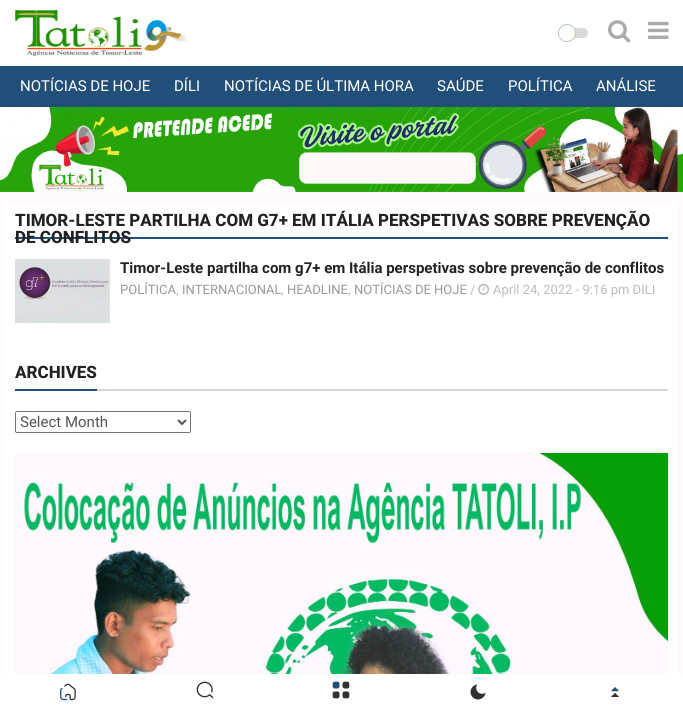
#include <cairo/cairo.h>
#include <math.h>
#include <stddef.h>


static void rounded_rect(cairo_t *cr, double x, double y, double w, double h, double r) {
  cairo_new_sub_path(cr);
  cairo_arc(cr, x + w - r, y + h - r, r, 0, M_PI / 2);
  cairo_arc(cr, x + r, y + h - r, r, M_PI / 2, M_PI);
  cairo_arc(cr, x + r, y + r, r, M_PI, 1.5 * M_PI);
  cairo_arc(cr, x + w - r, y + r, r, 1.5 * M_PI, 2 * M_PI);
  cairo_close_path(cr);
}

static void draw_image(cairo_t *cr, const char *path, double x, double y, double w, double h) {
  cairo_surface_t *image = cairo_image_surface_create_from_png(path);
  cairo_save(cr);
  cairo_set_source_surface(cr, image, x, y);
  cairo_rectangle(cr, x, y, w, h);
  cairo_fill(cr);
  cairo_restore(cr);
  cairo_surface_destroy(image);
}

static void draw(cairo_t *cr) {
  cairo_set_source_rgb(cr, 253 / 255.0, 251 / 255.0, 251 / 255.0);
  cairo_paint(cr);
  cairo_set_source_rgb(cr, 1, 1, 1);
  cairo_rectangle(cr, 0, 0, 683, 66);
  cairo_fill(cr);
  draw_image(cr, "images/1.png", 15, 10, 172, 46);
  cairo_set_source_rgb(cr, 217 / 255.0, 217 / 255.0, 217 / 255.0);
  rounded_rect(cr, 558, 28, 30, 10, 5);
  cairo_fill(cr);
  cairo_set_source_rgb(cr, 1, 1, 1);
  cairo_arc(cr, 567, 33, 9, 0, 2 * M_PI);
  cairo_fill(cr);
  cairo_arc(cr, 567, 33, 8.5, 0, 2 * M_PI);
  cairo_set_source_rgba(cr, 44 / 255.0, 105 / 255.0, 43 / 255.0, 0.34);
  cairo_set_line_width(cr, 1);
  cairo_stroke(cr);
  draw_image(cr, "images/2.png", 608, 20, 23, 23);
  draw_image(cr, "images/3.png", 648, 21, 21, 18);
  cairo_set_source_rgb(cr, 34 / 255.0, 79 / 255.0, 122 / 255.0);
  cairo_rectangle(cr, 0, 66, 683, 41);
  cairo_fill(cr);
  draw_image(cr, "images/4.png", 0, 107, 683, 85);
  cairo_set_source_rgb(cr, 1, 1, 1);
  cairo_rectangle(cr, 5, 202, 673, 472);
  cairo_fill(cr);
  cairo_set_source_rgb(cr, 34 / 255.0, 79 / 255.0, 122 / 255.0);
  cairo_rectangle(cr, 15, 237, 653, 2);
  cairo_fill(cr);
  draw_image(cr, "images/5.png", 15, 259, 95, 64);
  draw_image(cr, "images/6.png", 478, 283, 12, 12);
  cairo_set_source_rgb(cr, 214 / 255.0, 214 / 255.0, 214 / 255.0);
  cairo_rectangle(cr, 97, 389, 571, 2);
  cairo_fill(cr);
  cairo_set_source_rgb(cr, 34 / 255.0, 79 / 255.0, 122 / 255.0);
  cairo_rectangle(cr, 15, 389, 82, 2);
  cairo_fill(cr);
  rounded_rect(cr, 15.5, 411.5, 175, 21, 1.5);
  cairo_set_source_rgb(cr, 118 / 255.0, 118 / 255.0, 118 / 255.0);
  cairo_stroke(cr);
  cairo_new_path(cr);
  cairo_move_to(cr, 178, 420);
  cairo_line_to(cr, 182, 424);
  cairo_line_to(cr, 186, 420);
  cairo_set_source_rgb(cr, 85 / 255.0, 85 / 255.0, 85 / 255.0);
  cairo_set_line_width(cr, 2);
  cairo_stroke(cr);
  draw_image(cr, "images/7.png", 15, 453, 653, 221);
  cairo_set_source_rgb(cr, 1, 1, 1);
  cairo_rectangle(cr, 0, 674, 683, 36);
  cairo_fill(cr);
  draw_image(cr, "images/8.png", 60, 683, 16, 18);
  draw_image(cr, "images/9.png", 196, 681, 18, 18);
  draw_image(cr, "images/10.png", 332, 681, 18, 18);
  draw_image(cr, "images/11.png", 470, 684, 16, 16);
  draw_image(cr, "images/12.png", 611, 687, 8, 10);
  cairo_select_font_face(cr, "Roboto", CAIRO_FONT_SLANT_NORMAL, CAIRO_FONT_WEIGHT_NORMAL);
  cairo_set_font_size(cr, 15);
  cairo_move_to(cr, 20, 91);
  cairo_show_text(cr, "NOTÍCIAS DE HOJE");
  cairo_move_to(cr, 174, 91);
  cairo_show_text(cr, "DÍLI");
  cairo_move_to(cr, 224, 91);
  cairo_show_text(cr, "NOTÍCIAS DE ÚLTIMA HORA");
  cairo_move_to(cr, 437, 91);
  cairo_show_text(cr, "SAÚDE");
  cairo_move_to(cr, 508, 91);
  cairo_show_text(cr, "POLÍTICA");
  cairo_move_to(cr, 596, 91);
  cairo_show_text(cr, "ANÁLISE");
  cairo_select_font_face(cr, "Roboto ExtraBold", CAIRO_FONT_SLANT_NORMAL, CAIRO_FONT_WEIGHT_NORMAL);
  cairo_set_font_size(cr, 17);
  cairo_set_source_rgb(cr, 34 / 255.0, 34 / 255.0, 34 / 255.0);
  cairo_move_to(cr, 15, 226);
  cairo_show_text(cr, "TIMOR-LESTE PARTILHA COM G7+ EM ITÁLIA PERSPETIVAS SOBRE PREVENÇÃO");
  cairo_move_to(cr, 15, 243);
  cairo_show_text(cr, "DE CONFLITOS");
  cairo_select_font_face(cr, "Roboto", CAIRO_FONT_SLANT_NORMAL, CAIRO_FONT_WEIGHT_BOLD);
  cairo_set_font_size(cr, 15);
  cairo_move_to(cr, 120, 273);
  cairo_show_text(cr, "Timor-Leste partilha com g7+ em Itália perspetivas sobre prevenção de conflitos");
  cairo_select_font_face(cr, "Roboto", CAIRO_FONT_SLANT_NORMAL, CAIRO_FONT_WEIGHT_NORMAL);
  cairo_set_font_size(cr, 13);
  cairo_set_source_rgb(cr, 153 / 255.0, 153 / 255.0, 153 / 255.0);
  cairo_move_to(cr, 120, 294);
  cairo_show_text(cr, "POLÍTICA");
  cairo_set_source_rgb(cr, 187 / 255.0, 187 / 255.0, 187 / 255.0);
  cairo_move_to(cr, 176, 294);
  cairo_show_text(cr, ",");
  cairo_set_source_rgb(cr, 153 / 255.0, 153 / 255.0, 153 / 255.0);
  cairo_move_to(cr, 182, 294);
  cairo_show_text(cr, "INTERNACIONAL");
  cairo_set_source_rgb(cr, 187 / 255.0, 187 / 255.0, 187 / 255.0);
  cairo_move_to(cr, 281, 294);
  cairo_show_text(cr, ",");
  cairo_set_source_rgb(cr, 153 / 255.0, 153 / 255.0, 153 / 255.0);
  cairo_move_to(cr, 287, 294);
  cairo_show_text(cr, "HEADLINE");
  cairo_set_source_rgb(cr, 187 / 255.0, 187 / 255.0, 187 / 255.0);
  cairo_move_to(cr, 348, 294);
  cairo_show_text(cr, ",");
  cairo_set_source_rgb(cr, 153 / 255.0, 153 / 255.0, 153 / 255.0);
  cairo_move_to(cr, 354, 294);
  cairo_show_text(cr, "NOTÍCIAS DE HOJE");
  cairo_set_source_rgb(cr, 187 / 255.0, 187 / 255.0, 187 / 255.0);
  cairo_move_to(cr, 470, 294);
  cairo_show_text(cr, "/");
  cairo_move_to(cr, 493, 294);
  cairo_show_text(cr, "April 24, 2022 - 9:16 pm DILI");
  cairo_select_font_face(cr, "Roboto ExtraBold", CAIRO_FONT_SLANT_NORMAL, CAIRO_FONT_WEIGHT_NORMAL);
  cairo_set_font_size(cr, 17);
  cairo_set_source_rgb(cr, 34 / 255.0, 34 / 255.0, 34 / 255.0);
  cairo_move_to(cr, 15, 378);
  cairo_show_text(cr, "ARCHIVES");
  cairo_select_font_face(cr, "Roboto", CAIRO_FONT_SLANT_NORMAL, CAIRO_FONT_WEIGHT_NORMAL);
  cairo_set_font_size(cr, 15);
  cairo_set_source_rgb(cr, 85 / 255.0, 85 / 255.0, 85 / 255.0);
  cairo_move_to(cr, 20, 427);
  cairo_show_text(cr, "Select Month");
}

int main(void) {
  cairo_surface_t *surface = cairo_image_surface_create(CAIRO_FORMAT_RGB24, 683, 710);
  cairo_t *cr = cairo_create(surface);
  cairo_font_options_t *options = cairo_font_options_create();
  cairo_font_options_set_hint_metrics(options, CAIRO_HINT_METRICS_OFF);
  cairo_font_options_set_hint_style(options, CAIRO_HINT_STYLE_NONE);
  cairo_set_font_options(cr, options);
  cairo_set_miter_limit(cr, 4);
  draw(cr);
  cairo_surface_write_to_png(surface, "out.png");
  cairo_font_options_destroy(options);
  cairo_destroy(cr);
  cairo_surface_destroy(surface);
  return 0;
}
